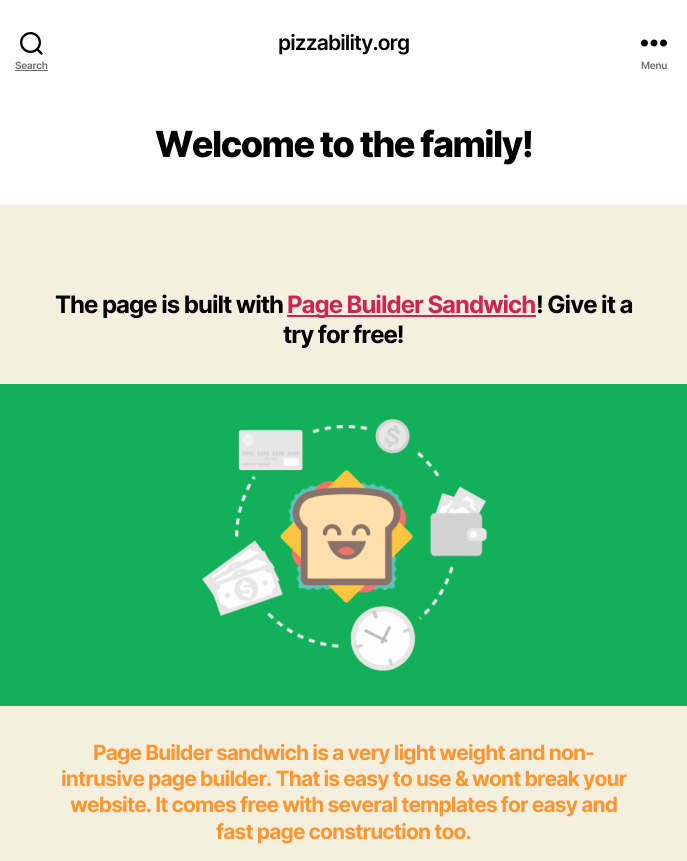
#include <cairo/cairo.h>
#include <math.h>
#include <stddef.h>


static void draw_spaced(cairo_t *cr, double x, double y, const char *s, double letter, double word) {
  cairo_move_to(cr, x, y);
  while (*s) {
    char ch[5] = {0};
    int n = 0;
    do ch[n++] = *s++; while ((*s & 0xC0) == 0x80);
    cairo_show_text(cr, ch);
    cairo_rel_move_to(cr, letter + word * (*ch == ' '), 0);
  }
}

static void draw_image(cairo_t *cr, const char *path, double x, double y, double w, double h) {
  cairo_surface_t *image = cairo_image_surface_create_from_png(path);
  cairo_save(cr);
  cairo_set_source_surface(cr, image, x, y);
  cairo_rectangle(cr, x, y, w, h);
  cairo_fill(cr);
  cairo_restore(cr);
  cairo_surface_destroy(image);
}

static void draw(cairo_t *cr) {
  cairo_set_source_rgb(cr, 245 / 255.0, 239 / 255.0, 224 / 255.0);
  cairo_paint(cr);
  cairo_set_source_rgb(cr, 1, 1, 1);
  cairo_rectangle(cr, 0, 0, 687, 205);
  cairo_fill(cr);
  draw_image(cr, "images/1.png", 20, 32, 23, 23);
  cairo_set_source_rgb(cr, 109 / 255.0, 109 / 255.0, 109 / 255.0);
  cairo_rectangle(cr, 15, 70, 33, 1);
  cairo_fill(cr);
  draw_image(cr, "images/2.png", 641, 39, 26, 8);
  cairo_set_source_rgb(cr, 205 / 255.0, 38 / 255.0, 83 / 255.0);
  cairo_rectangle(cr, 287, 315, 249, 2);
  cairo_fill(cr);
  cairo_set_source_rgb(cr, 18 / 255.0, 176 / 255.0, 89 / 255.0);
  cairo_rectangle(cr, 0, 384, 687, 322);
  cairo_fill(cr);
  draw_image(cr, "images/3.png", 202, 419, 285, 252);
  cairo_select_font_face(cr, "Inter SemiBold", CAIRO_FONT_SLANT_NORMAL, CAIRO_FONT_WEIGHT_NORMAL);
  cairo_set_font_size(cr, 21);
  cairo_set_source_rgb(cr, 0, 0, 0);
  draw_spaced(cr, 278, 50, "pizzability.org", -0.87, 0);
  cairo_set_font_size(cr, 10);
  cairo_set_source_rgb(cr, 109 / 255.0, 109 / 255.0, 109 / 255.0);
  draw_spaced(cr, 15, 69, "Search", -0.25, 0);
  draw_spaced(cr, 641, 69, "Menu", -0.25, 0);
  cairo_select_font_face(cr, "Inter ExtraBold", CAIRO_FONT_SLANT_NORMAL, CAIRO_FONT_WEIGHT_NORMAL);
  cairo_set_font_size(cr, 36);
  cairo_set_source_rgb(cr, 0, 0, 0);
  draw_spaced(cr, 155, 157, "Welcome to the family!", -1.5, 0);
  cairo_select_font_face(cr, "Inter", CAIRO_FONT_SLANT_NORMAL, CAIRO_FONT_WEIGHT_BOLD);
  cairo_set_font_size(cr, 24);
  draw_spaced(cr, 55, 313, "The page is built with", -1, 0);
  cairo_set_source_rgb(cr, 205 / 255.0, 38 / 255.0, 83 / 255.0);
  draw_spaced(cr, 287, 313, "Page Builder Sandwich", -1, 0);
  cairo_set_source_rgb(cr, 0, 0, 0);
  draw_spaced(cr, 536, 313, "! Give it a", -1, 0);
  draw_spaced(cr, 283, 343, "try for free!", -1, 0);
  cairo_set_font_size(cr, 21);
  cairo_set_source_rgb(cr, 254 / 255.0, 150 / 255.0, 49 / 255.0);
  draw_spaced(cr, 93, 760, "Page Builder sandwich is a very light weight and non-", -0.87, 0);
  draw_spaced(cr, 61, 786, "intrusive page builder. That is easy to use & wont break your", -0.87, 0);
  draw_spaced(cr, 70, 812, "website. It comes free with several templates for easy and", -0.87, 0);
  draw_spaced(cr, 216, 839, "fast page construction too.", -0.87, 0);
}

int main(void) {
  cairo_surface_t *surface = cairo_image_surface_create(CAIRO_FORMAT_RGB24, 687, 861);
  cairo_t *cr = cairo_create(surface);
  cairo_font_options_t *options = cairo_font_options_create();
  cairo_font_options_set_hint_metrics(options, CAIRO_HINT_METRICS_OFF);
  cairo_font_options_set_hint_style(options, CAIRO_HINT_STYLE_NONE);
  cairo_set_font_options(cr, options);
  cairo_set_miter_limit(cr, 4);
  draw(cr);
  cairo_surface_write_to_png(surface, "out.png");
  cairo_font_options_destroy(options);
  cairo_destroy(cr);
  cairo_surface_destroy(surface);
  return 0;
}
